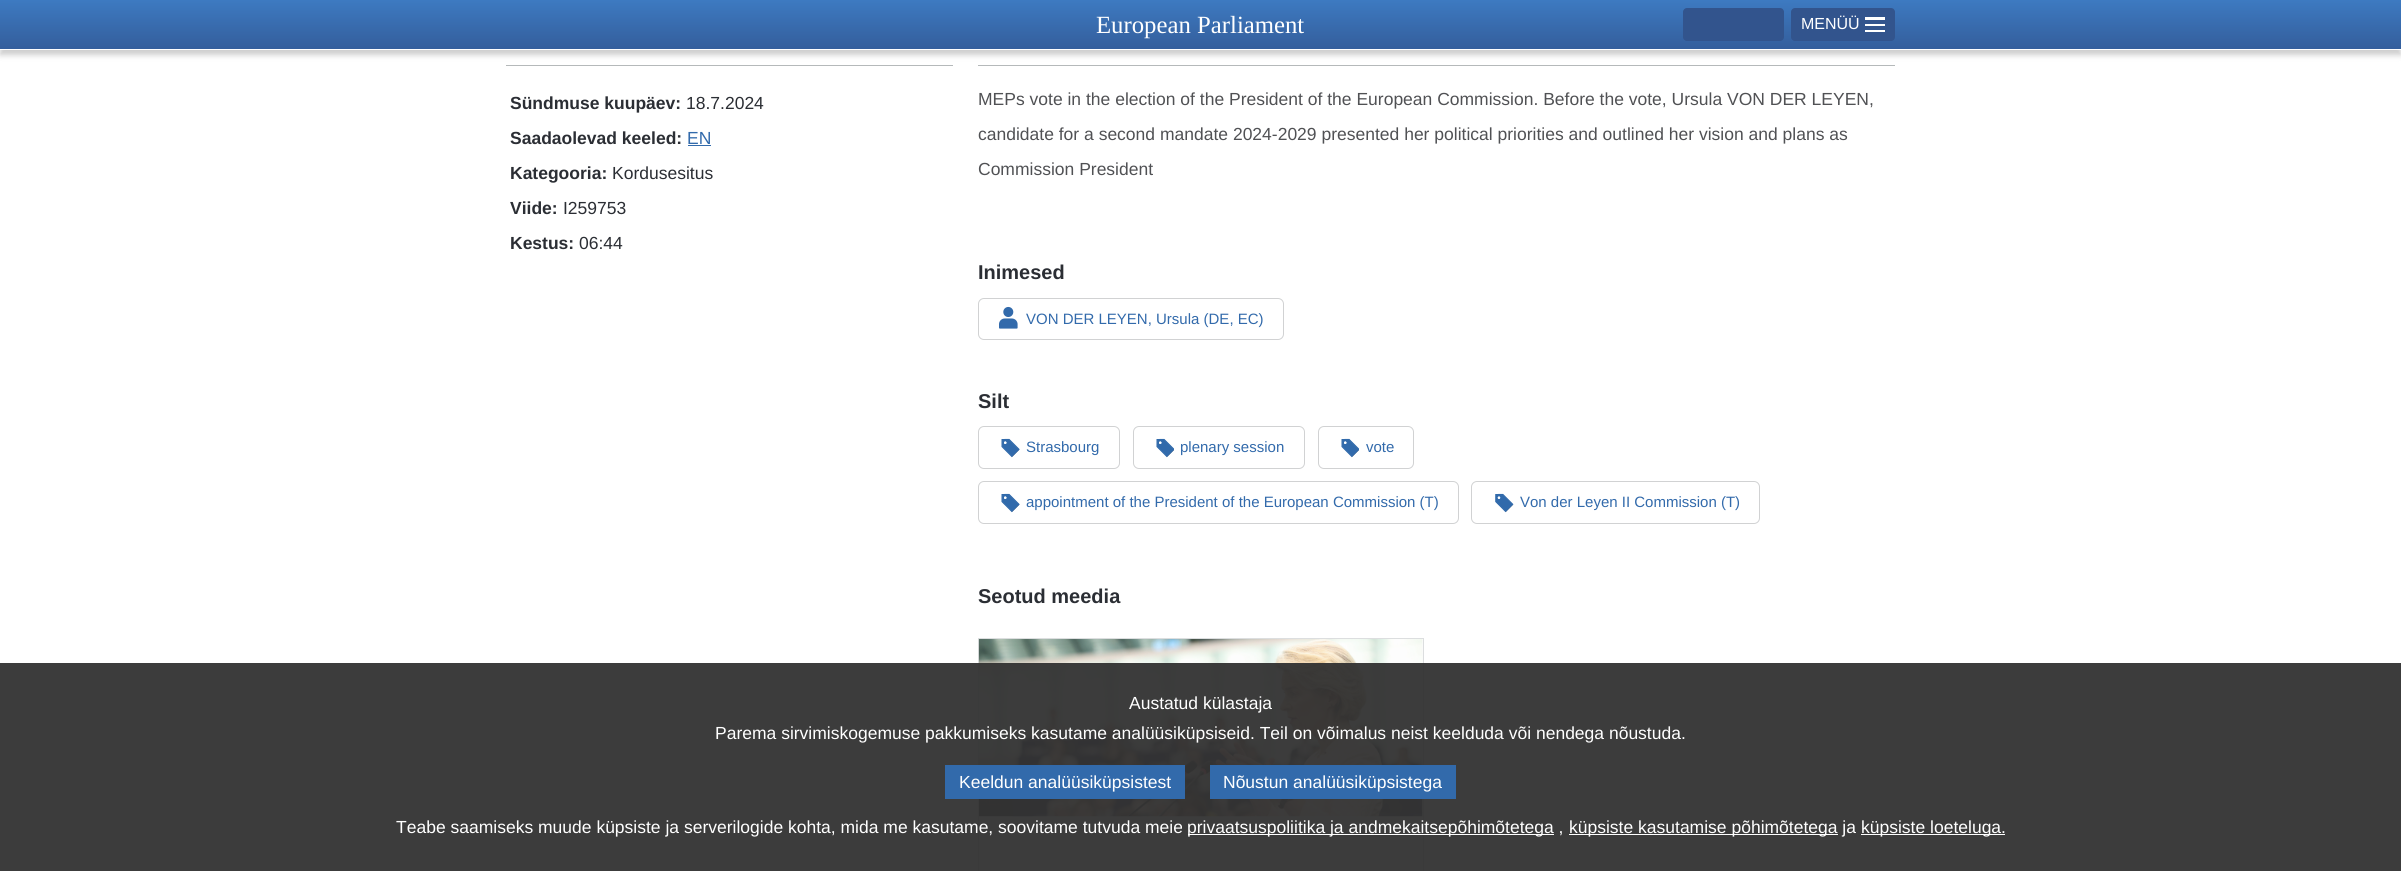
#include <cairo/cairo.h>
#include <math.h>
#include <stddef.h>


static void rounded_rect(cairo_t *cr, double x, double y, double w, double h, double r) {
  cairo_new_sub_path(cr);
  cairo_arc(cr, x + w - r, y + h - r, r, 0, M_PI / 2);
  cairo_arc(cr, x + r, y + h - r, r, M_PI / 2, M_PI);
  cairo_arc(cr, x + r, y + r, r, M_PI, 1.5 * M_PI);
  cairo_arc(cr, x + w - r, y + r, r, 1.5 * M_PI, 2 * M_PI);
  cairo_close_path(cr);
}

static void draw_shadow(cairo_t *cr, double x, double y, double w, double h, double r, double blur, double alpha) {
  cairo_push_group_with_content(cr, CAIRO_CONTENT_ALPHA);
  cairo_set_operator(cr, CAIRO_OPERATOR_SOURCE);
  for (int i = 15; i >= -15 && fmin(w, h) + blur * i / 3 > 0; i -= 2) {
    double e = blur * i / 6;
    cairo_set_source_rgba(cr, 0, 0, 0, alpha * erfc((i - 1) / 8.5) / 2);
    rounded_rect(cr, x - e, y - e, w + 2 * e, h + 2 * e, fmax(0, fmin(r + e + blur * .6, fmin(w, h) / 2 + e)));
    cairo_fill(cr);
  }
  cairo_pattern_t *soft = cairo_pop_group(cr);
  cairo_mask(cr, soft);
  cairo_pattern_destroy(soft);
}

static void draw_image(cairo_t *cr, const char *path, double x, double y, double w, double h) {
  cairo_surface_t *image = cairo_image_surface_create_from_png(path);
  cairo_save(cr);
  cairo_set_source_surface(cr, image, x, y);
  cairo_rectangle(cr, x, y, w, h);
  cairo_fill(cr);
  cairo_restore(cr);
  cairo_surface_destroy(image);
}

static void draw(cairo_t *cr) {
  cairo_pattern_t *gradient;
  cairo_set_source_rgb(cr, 1, 1, 1);
  cairo_paint(cr);
  cairo_set_source_rgb(cr, 0, 0, 0);
  draw_shadow(cr, 0, 5, 2401, 50, 0, 3, 0.2);
  gradient = cairo_pattern_create_linear(1201, 0, 1201, 49);
  cairo_pattern_add_color_stop_rgba(gradient, 0, 61 / 255.0, 122 / 255.0, 193 / 255.0, 1);
  cairo_pattern_add_color_stop_rgba(gradient, 1, 52 / 255.0, 94 / 255.0, 156 / 255.0, 1);
  cairo_set_source(cr, gradient);
  cairo_pattern_destroy(gradient);
  cairo_rectangle(cr, 0, 0, 2401, 49);
  cairo_fill(cr);
  cairo_set_source_rgb(cr, 1, 1, 1);
  cairo_rectangle(cr, 0, 49, 2401, 1);
  cairo_fill(cr);
  cairo_set_source_rgb(cr, 50 / 255.0, 84 / 255.0, 141 / 255.0);
  rounded_rect(cr, 1683, 8, 101, 33, 4);
  cairo_fill(cr);
  rounded_rect(cr, 1791, 8, 104, 33, 4);
  cairo_fill(cr);
  cairo_set_source_rgb(cr, 1, 1, 1);
  cairo_rectangle(cr, 1865, 17, 20, 3);
  cairo_fill(cr);
  cairo_rectangle(cr, 1865, 24, 20, 2);
  cairo_fill(cr);
  cairo_rectangle(cr, 1865, 30, 20, 2);
  cairo_fill(cr);
  cairo_set_source_rgb(cr, 181 / 255.0, 185 / 255.0, 186 / 255.0);
  cairo_rectangle(cr, 506, 65, 447, 1);
  cairo_fill(cr);
  cairo_set_source_rgb(cr, 50 / 255.0, 106 / 255.0, 171 / 255.0);
  cairo_rectangle(cr, 688, 145, 23, 1);
  cairo_fill(cr);
  cairo_set_source_rgb(cr, 181 / 255.0, 185 / 255.0, 186 / 255.0);
  cairo_rectangle(cr, 978, 65, 917, 1);
  cairo_fill(cr);
  rounded_rect(cr, 978.5, 298.5, 305, 41, 5.5);
  cairo_set_source_rgb(cr, 209 / 255.0, 210 / 255.0, 211 / 255.0);
  cairo_set_line_width(cr, 1);
  cairo_stroke(cr);
  draw_image(cr, "images/1.png", 999, 306, 19, 23);
  rounded_rect(cr, 978.5, 426.5, 141, 42, 5.5);
  cairo_stroke(cr);
  draw_image(cr, "images/2.png", 1001, 438, 19, 20);
  rounded_rect(cr, 1133.5, 426.5, 171, 42, 5.5);
  cairo_stroke(cr);
  draw_image(cr, "images/3.png", 1156, 438, 18, 20);
  rounded_rect(cr, 1318.5, 426.5, 95, 42, 5.5);
  cairo_stroke(cr);
  draw_image(cr, "images/3.png", 1341, 438, 18, 20);
  rounded_rect(cr, 978.5, 481.5, 480, 42, 5.5);
  cairo_stroke(cr);
  draw_image(cr, "images/2.png", 1001, 493, 19, 20);
  rounded_rect(cr, 1471.5, 481.5, 288, 42, 5.5);
  cairo_stroke(cr);
  draw_image(cr, "images/4.png", 1495, 493, 19, 20);
  cairo_rectangle(cr, 978.5, 638.5, 445, 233);
  cairo_set_source_rgb(cr, 220 / 255.0, 222 / 255.0, 223 / 255.0);
  cairo_stroke(cr);
  cairo_set_source_rgb(cr, 250 / 255.0, 250 / 255.0, 250 / 255.0);
  cairo_rectangle(cr, 1421, 639, 2, 177);
  cairo_fill(cr);
  draw_image(cr, "images/5.png", 978, 639, 445, 178);
  cairo_set_source_rgba(cr, 51 / 255.0, 51 / 255.0, 51 / 255.0, 0.95);
  cairo_rectangle(cr, 0, 663, 2401, 208);
  cairo_fill(cr);
  cairo_set_source_rgb(cr, 50 / 255.0, 106 / 255.0, 171 / 255.0);
  cairo_rectangle(cr, 945, 765, 240, 34);
  cairo_fill(cr);
  cairo_rectangle(cr, 1210, 765, 246, 34);
  cairo_fill(cr);
  cairo_set_source_rgb(cr, 1, 1, 1);
  cairo_rectangle(cr, 1188, 834, 366, 1);
  cairo_fill(cr);
  cairo_rectangle(cr, 1569, 834, 269, 1);
  cairo_fill(cr);
  cairo_rectangle(cr, 1861, 834, 144, 1);
  cairo_fill(cr);
  cairo_select_font_face(cr, "Liberation Serif", CAIRO_FONT_SLANT_NORMAL, CAIRO_FONT_WEIGHT_NORMAL);
  cairo_set_font_size(cr, 24.75);
  cairo_move_to(cr, 1096, 33);
  cairo_show_text(cr, "European Parliament");
  cairo_select_font_face(cr, "Liberation Sans", CAIRO_FONT_SLANT_NORMAL, CAIRO_FONT_WEIGHT_NORMAL);
  cairo_set_font_size(cr, 16);
  cairo_move_to(cr, 1801, 29);
  cairo_show_text(cr, "MENÜÜ");
  cairo_select_font_face(cr, "Liberation Sans", CAIRO_FONT_SLANT_NORMAL, CAIRO_FONT_WEIGHT_BOLD);
  cairo_set_font_size(cr, 17.5);
  cairo_set_source_rgb(cr, 43 / 255.0, 46 / 255.0, 52 / 255.0);
  cairo_move_to(cr, 510, 109);
  cairo_show_text(cr, "Sündmuse kuupäev:");
  cairo_select_font_face(cr, "Liberation Sans", CAIRO_FONT_SLANT_NORMAL, CAIRO_FONT_WEIGHT_NORMAL);
  cairo_move_to(cr, 686, 109);
  cairo_show_text(cr, "18.7.2024");
  cairo_select_font_face(cr, "Liberation Sans", CAIRO_FONT_SLANT_NORMAL, CAIRO_FONT_WEIGHT_BOLD);
  cairo_move_to(cr, 510, 144);
  cairo_show_text(cr, "Saadaolevad keeled:");
  cairo_select_font_face(cr, "Liberation Sans", CAIRO_FONT_SLANT_NORMAL, CAIRO_FONT_WEIGHT_NORMAL);
  cairo_set_source_rgb(cr, 50 / 255.0, 106 / 255.0, 171 / 255.0);
  cairo_move_to(cr, 687, 144);
  cairo_show_text(cr, "EN");
  cairo_select_font_face(cr, "Liberation Sans", CAIRO_FONT_SLANT_NORMAL, CAIRO_FONT_WEIGHT_BOLD);
  cairo_set_source_rgb(cr, 43 / 255.0, 46 / 255.0, 52 / 255.0);
  cairo_move_to(cr, 510, 179);
  cairo_show_text(cr, "Kategooria:");
  cairo_select_font_face(cr, "Liberation Sans", CAIRO_FONT_SLANT_NORMAL, CAIRO_FONT_WEIGHT_NORMAL);
  cairo_move_to(cr, 612, 179);
  cairo_show_text(cr, "Kordusesitus");
  cairo_select_font_face(cr, "Liberation Sans", CAIRO_FONT_SLANT_NORMAL, CAIRO_FONT_WEIGHT_BOLD);
  cairo_move_to(cr, 510, 214);
  cairo_show_text(cr, "Viide:");
  cairo_select_font_face(cr, "Liberation Sans", CAIRO_FONT_SLANT_NORMAL, CAIRO_FONT_WEIGHT_NORMAL);
  cairo_move_to(cr, 563, 214);
  cairo_show_text(cr, "I259753");
  cairo_select_font_face(cr, "Liberation Sans", CAIRO_FONT_SLANT_NORMAL, CAIRO_FONT_WEIGHT_BOLD);
  cairo_move_to(cr, 510, 249);
  cairo_show_text(cr, "Kestus:");
  cairo_select_font_face(cr, "Liberation Sans", CAIRO_FONT_SLANT_NORMAL, CAIRO_FONT_WEIGHT_NORMAL);
  cairo_move_to(cr, 579, 249);
  cairo_show_text(cr, "06:44");
  cairo_set_source_rgb(cr, 80 / 255.0, 81 / 255.0, 84 / 255.0);
  cairo_move_to(cr, 978, 105);
  cairo_show_text(cr, "MEPs vote in the election of the President of the European Commission. Before the vote, Ursula VON DER LEYEN,");
  cairo_move_to(cr, 978, 140);
  cairo_show_text(cr, "candidate for a second mandate 2024-2029 presented her political priorities and outlined her vision and plans as");
  cairo_move_to(cr, 978, 175);
  cairo_show_text(cr, "Commission President");
  cairo_select_font_face(cr, "Liberation Sans", CAIRO_FONT_SLANT_NORMAL, CAIRO_FONT_WEIGHT_BOLD);
  cairo_set_font_size(cr, 20);
  cairo_set_source_rgb(cr, 43 / 255.0, 46 / 255.0, 52 / 255.0);
  cairo_move_to(cr, 978, 279);
  cairo_show_text(cr, "Inimesed");
  cairo_select_font_face(cr, "Liberation Sans", CAIRO_FONT_SLANT_NORMAL, CAIRO_FONT_WEIGHT_NORMAL);
  cairo_set_font_size(cr, 15);
  cairo_set_source_rgb(cr, 50 / 255.0, 106 / 255.0, 171 / 255.0);
  cairo_move_to(cr, 1026, 324);
  cairo_show_text(cr, "VON DER LEYEN, Ursula (DE, EC)");
  cairo_select_font_face(cr, "Liberation Sans", CAIRO_FONT_SLANT_NORMAL, CAIRO_FONT_WEIGHT_BOLD);
  cairo_set_font_size(cr, 20);
  cairo_set_source_rgb(cr, 43 / 255.0, 46 / 255.0, 52 / 255.0);
  cairo_move_to(cr, 978, 408);
  cairo_show_text(cr, "Silt");
  cairo_select_font_face(cr, "Liberation Sans", CAIRO_FONT_SLANT_NORMAL, CAIRO_FONT_WEIGHT_NORMAL);
  cairo_set_font_size(cr, 15);
  cairo_set_source_rgb(cr, 50 / 255.0, 106 / 255.0, 171 / 255.0);
  cairo_move_to(cr, 1026, 452);
  cairo_show_text(cr, "Strasbourg");
  cairo_move_to(cr, 1180, 452);
  cairo_show_text(cr, "plenary session");
  cairo_move_to(cr, 1366, 452);
  cairo_show_text(cr, "vote");
  cairo_move_to(cr, 1026, 507);
  cairo_show_text(cr, "appointment of the President of the European Commission (T)");
  cairo_move_to(cr, 1520, 507);
  cairo_show_text(cr, "Von der Leyen II Commission (T)");
  cairo_select_font_face(cr, "Liberation Sans", CAIRO_FONT_SLANT_NORMAL, CAIRO_FONT_WEIGHT_BOLD);
  cairo_set_font_size(cr, 20);
  cairo_set_source_rgb(cr, 43 / 255.0, 46 / 255.0, 52 / 255.0);
  cairo_move_to(cr, 978, 603);
  cairo_show_text(cr, "Seotud meedia");
  cairo_select_font_face(cr, "Liberation Sans", CAIRO_FONT_SLANT_NORMAL, CAIRO_FONT_WEIGHT_NORMAL);
  cairo_set_font_size(cr, 17.5);
  cairo_set_source_rgb(cr, 1, 1, 1);
  cairo_move_to(cr, 1129, 709);
  cairo_show_text(cr, "Austatud külastaja");
  cairo_move_to(cr, 715, 739);
  cairo_show_text(cr, "Parema sirvimiskogemuse pakkumiseks kasutame analüüsiküpsiseid. Teil on võimalus neist keelduda või nendega nõustuda.");
  cairo_move_to(cr, 959, 788);
  cairo_show_text(cr, "Keeldun analüüsiküpsistest");
  cairo_move_to(cr, 1223, 788);
  cairo_show_text(cr, "Nõustun analüüsiküpsistega");
  cairo_move_to(cr, 396, 833);
  cairo_show_text(cr, "Teabe saamiseks muude küpsiste ja serverilogide kohta, mida me kasutame, soovitame tutvuda meie");
  cairo_move_to(cr, 1187, 833);
  cairo_show_text(cr, "privaatsuspoliitika ja andmekaitsepõhimõtetega ,");
  cairo_move_to(cr, 1569, 833);
  cairo_show_text(cr, "küpsiste kasutamise põhimõtetega ja");
  cairo_move_to(cr, 1861, 833);
  cairo_show_text(cr, "küpsiste loeteluga.");
}

int main(void) {
  cairo_surface_t *surface = cairo_image_surface_create(CAIRO_FORMAT_RGB24, 2401, 871);
  cairo_t *cr = cairo_create(surface);
  cairo_font_options_t *options = cairo_font_options_create();
  cairo_font_options_set_hint_metrics(options, CAIRO_HINT_METRICS_OFF);
  cairo_font_options_set_hint_style(options, CAIRO_HINT_STYLE_NONE);
  cairo_set_font_options(cr, options);
  cairo_set_miter_limit(cr, 4);
  draw(cr);
  cairo_surface_write_to_png(surface, "out.png");
  cairo_font_options_destroy(options);
  cairo_destroy(cr);
  cairo_surface_destroy(surface);
  return 0;
}
